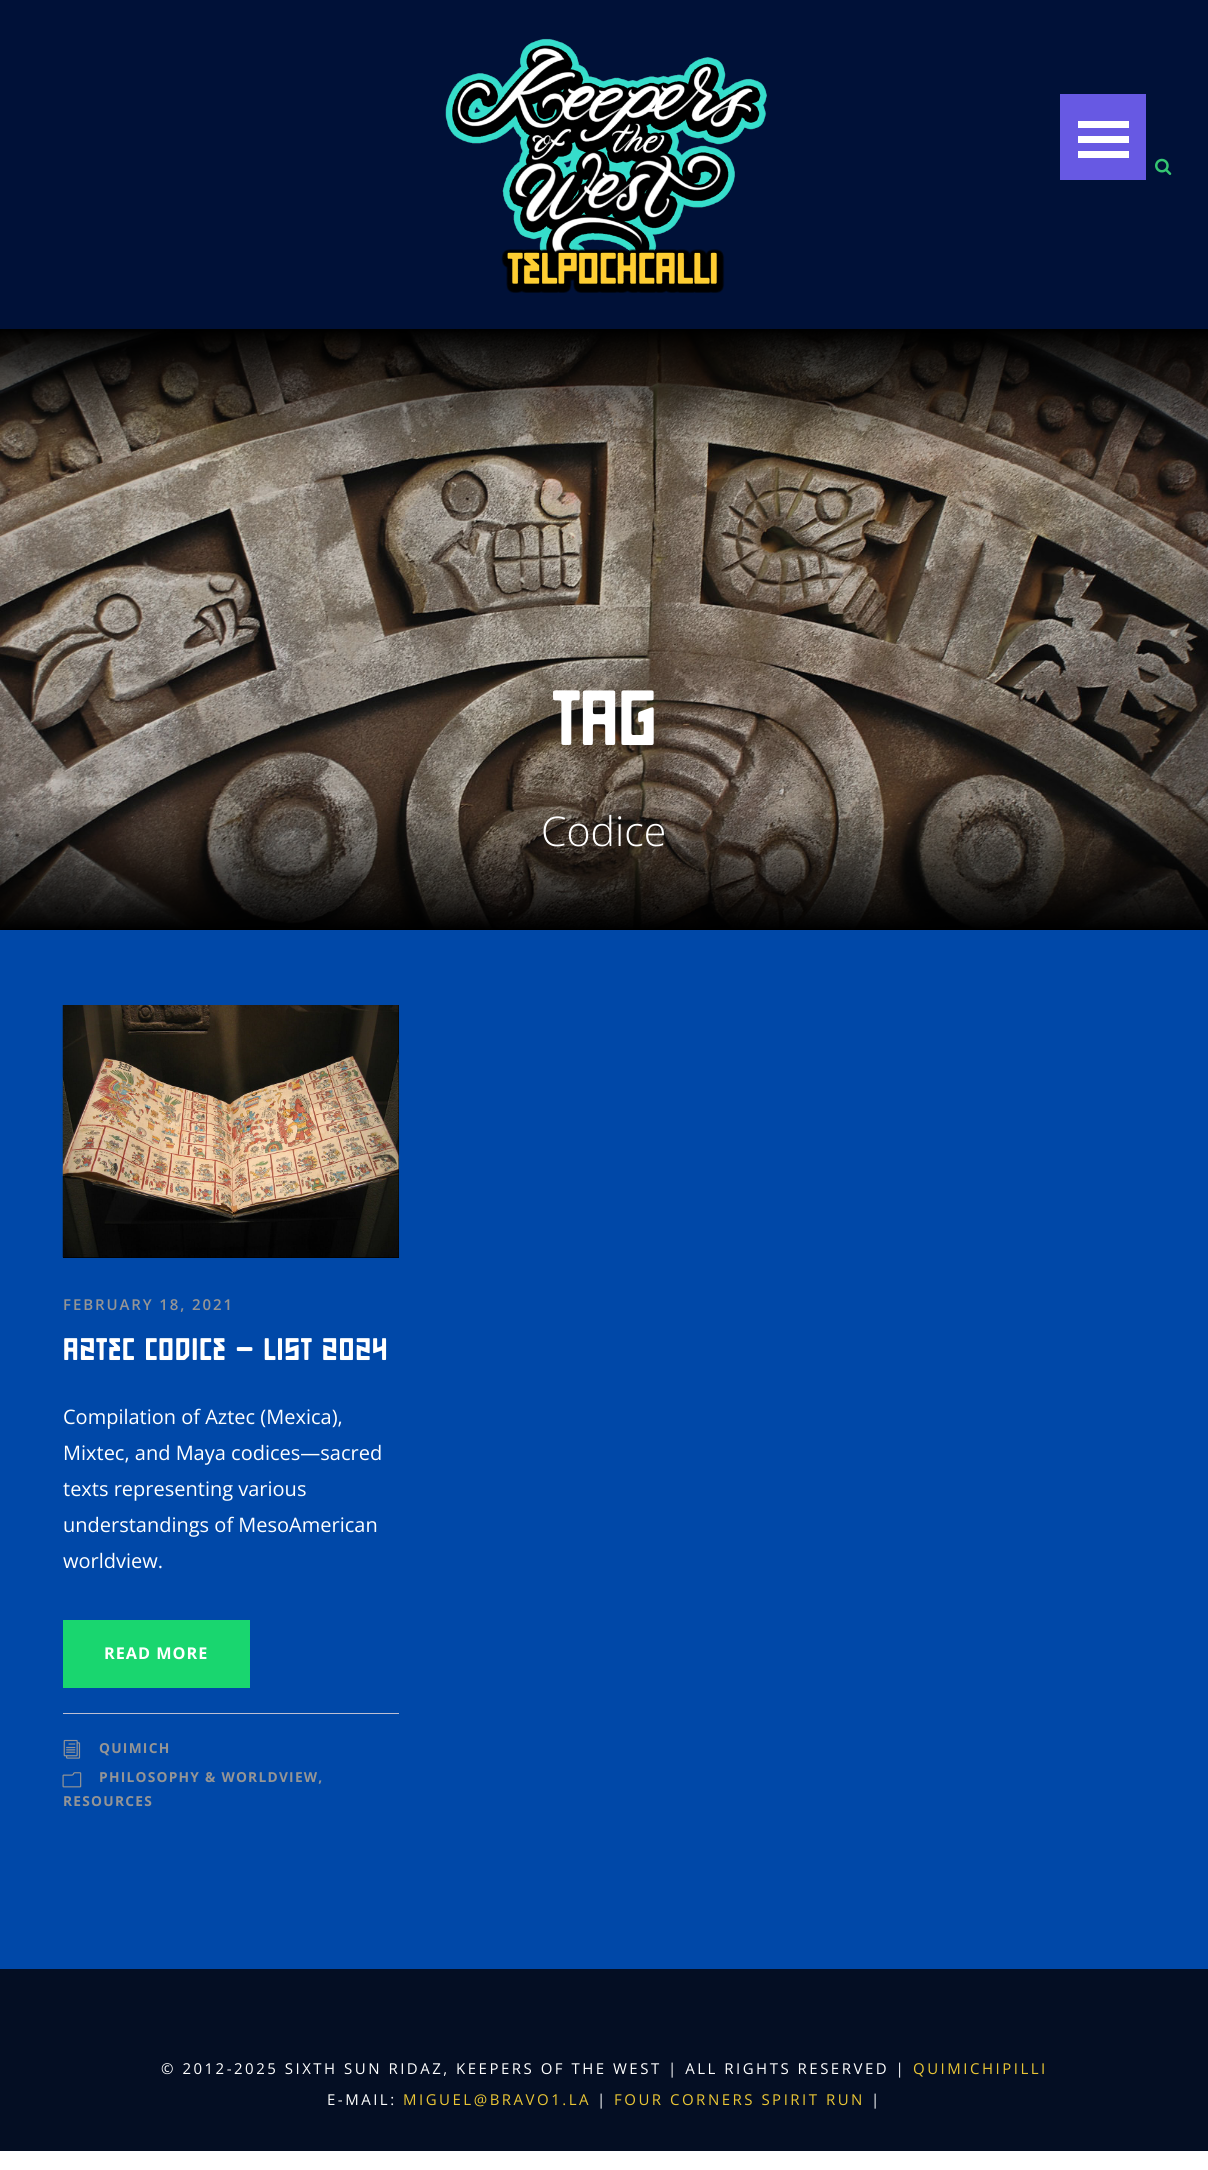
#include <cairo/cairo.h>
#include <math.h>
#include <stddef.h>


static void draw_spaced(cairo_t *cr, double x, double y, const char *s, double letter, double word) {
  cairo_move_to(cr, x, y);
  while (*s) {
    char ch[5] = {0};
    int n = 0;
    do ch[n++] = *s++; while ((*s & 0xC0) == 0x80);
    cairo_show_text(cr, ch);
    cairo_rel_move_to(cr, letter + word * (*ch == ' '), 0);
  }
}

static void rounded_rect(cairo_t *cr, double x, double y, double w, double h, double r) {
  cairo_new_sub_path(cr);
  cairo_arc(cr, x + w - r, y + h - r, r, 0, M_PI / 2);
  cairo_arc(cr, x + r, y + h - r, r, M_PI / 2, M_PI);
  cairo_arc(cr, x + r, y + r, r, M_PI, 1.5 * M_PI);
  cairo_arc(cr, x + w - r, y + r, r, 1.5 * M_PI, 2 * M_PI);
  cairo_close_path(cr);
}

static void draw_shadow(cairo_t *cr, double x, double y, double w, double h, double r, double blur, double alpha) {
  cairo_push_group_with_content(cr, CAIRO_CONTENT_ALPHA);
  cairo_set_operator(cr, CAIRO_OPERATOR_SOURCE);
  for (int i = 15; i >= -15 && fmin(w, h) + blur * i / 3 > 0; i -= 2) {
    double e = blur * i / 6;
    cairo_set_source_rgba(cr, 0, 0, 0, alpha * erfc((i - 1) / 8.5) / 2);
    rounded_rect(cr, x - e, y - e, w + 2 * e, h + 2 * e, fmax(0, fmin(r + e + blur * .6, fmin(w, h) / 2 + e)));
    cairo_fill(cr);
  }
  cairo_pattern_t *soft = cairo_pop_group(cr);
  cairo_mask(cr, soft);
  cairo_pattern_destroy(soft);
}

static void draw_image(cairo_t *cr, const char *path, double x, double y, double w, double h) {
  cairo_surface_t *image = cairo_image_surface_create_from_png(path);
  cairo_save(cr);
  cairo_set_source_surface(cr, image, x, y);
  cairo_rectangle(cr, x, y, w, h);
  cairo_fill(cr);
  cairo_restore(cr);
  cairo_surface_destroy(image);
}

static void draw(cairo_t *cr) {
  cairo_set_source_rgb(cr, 1, 1, 1);
  cairo_paint(cr);
  draw_image(cr, "images/3.png", 0, 329, 1208, 601);
  cairo_set_source_rgb(cr, 0, 0, 0);
  draw_shadow(cr, 0, 1, 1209, 329, 0, 1, 0.1);
  cairo_set_source_rgb(cr, 0, 17 / 255.0, 56 / 255.0);
  cairo_rectangle(cr, 0, 0, 1208, 329);
  cairo_fill(cr);
  draw_image(cr, "images/1.png", 445, 38, 322, 255);
  draw_image(cr, "images/2.png", 1155, 158, 17, 17);
  cairo_set_source_rgb(cr, 103 / 255.0, 89 / 255.0, 227 / 255.0);
  cairo_rectangle(cr, 1060, 94, 86, 86);
  cairo_fill(cr);
  cairo_set_source_rgb(cr, 1, 1, 1);
  cairo_rectangle(cr, 1078, 136, 51, 7);
  cairo_fill(cr);
  cairo_rectangle(cr, 1078, 121, 51, 7);
  cairo_fill(cr);
  cairo_rectangle(cr, 1078, 151, 51, 7);
  cairo_fill(cr);
  cairo_set_source_rgb(cr, 0, 72 / 255.0, 168 / 255.0);
  cairo_rectangle(cr, 0, 930, 1208, 1039);
  cairo_fill(cr);
  cairo_set_source_rgb(cr, 0, 0, 0);
  cairo_rectangle(cr, 63, 1005, 336, 253);
  cairo_fill(cr);
  draw_image(cr, "images/4.png", 62, 1005, 337, 253);
  cairo_set_source_rgb(cr, 25 / 255.0, 214 / 255.0, 111 / 255.0);
  cairo_rectangle(cr, 63, 1620, 187, 68);
  cairo_fill(cr);
  cairo_set_source_rgb(cr, 189 / 255.0, 191 / 255.0, 211 / 255.0);
  cairo_rectangle(cr, 63, 1713, 336, 1);
  cairo_fill(cr);
  draw_image(cr, "images/5.png", 63, 1739, 18, 20);
  draw_image(cr, "images/6.png", 62, 1772, 20, 16);
  cairo_set_source_rgb(cr, 4 / 255.0, 14 / 255.0, 35 / 255.0);
  cairo_rectangle(cr, 0, 1969, 1208, 182);
  cairo_fill(cr);
  cairo_select_font_face(cr, "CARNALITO", CAIRO_FONT_SLANT_NORMAL, CAIRO_FONT_WEIGHT_NORMAL);
  cairo_set_font_size(cr, 78);
  cairo_set_source_rgb(cr, 1, 1, 1);
  cairo_move_to(cr, 553, 745);
  cairo_show_text(cr, "TAG");
  cairo_select_font_face(cr, "Open Sans Light", CAIRO_FONT_SLANT_NORMAL, CAIRO_FONT_WEIGHT_NORMAL);
  cairo_set_font_size(cr, 41);
  cairo_move_to(cr, 541, 846);
  cairo_show_text(cr, "Codice");
  cairo_select_font_face(cr, "Open Sans SemiBold", CAIRO_FONT_SLANT_NORMAL, CAIRO_FONT_WEIGHT_NORMAL);
  cairo_set_font_size(cr, 15);
  cairo_set_source_rgb(cr, 149 / 255.0, 149 / 255.0, 149 / 255.0);
  draw_spaced(cr, 63, 1310, "FEBRUARY 18, 2021", 1.9, 0);
  cairo_select_font_face(cr, "CARNALITO", CAIRO_FONT_SLANT_NORMAL, CAIRO_FONT_WEIGHT_NORMAL);
  cairo_set_font_size(cr, 31.25);
  cairo_set_source_rgb(cr, 1, 1, 1);
  draw_spaced(cr, 63, 1360, "AZTEC CODICE – LIST 2024", 1.25, 0);
  cairo_select_font_face(cr, "Open Sans", CAIRO_FONT_SLANT_NORMAL, CAIRO_FONT_WEIGHT_NORMAL);
  cairo_set_font_size(cr, 20);
  cairo_move_to(cr, 63, 1424);
  cairo_show_text(cr, "Compilation of Aztec (Mexica),");
  cairo_move_to(cr, 63, 1460);
  cairo_show_text(cr, "Mixtec, and Maya codices—sacred");
  cairo_move_to(cr, 63, 1496);
  cairo_show_text(cr, "texts representing various");
  cairo_move_to(cr, 63, 1532);
  cairo_show_text(cr, "understandings of MesoAmerican");
  cairo_move_to(cr, 63, 1568);
  cairo_show_text(cr, "worldview.");
  cairo_select_font_face(cr, "Open Sans", CAIRO_FONT_SLANT_NORMAL, CAIRO_FONT_WEIGHT_BOLD);
  cairo_set_font_size(cr, 16.25);
  draw_spaced(cr, 104, 1659, "READ MORE", 1, 0);
  cairo_set_font_size(cr, 13.75);
  cairo_set_source_rgb(cr, 149 / 255.0, 149 / 255.0, 149 / 255.0);
  draw_spaced(cr, 99, 1753, "QUIMICH", 1.25, 0);
  draw_spaced(cr, 99, 1782, "PHILOSOPHY & WORLDVIEW,", 1.25, 0);
  draw_spaced(cr, 63, 1806, "RESOURCES", 1.25, 0);
  cairo_select_font_face(cr, "Open Sans", CAIRO_FONT_SLANT_NORMAL, CAIRO_FONT_WEIGHT_NORMAL);
  cairo_set_font_size(cr, 15);
  cairo_set_source_rgb(cr, 1, 1, 1);
  draw_spaced(cr, 161, 2074, "© 2012-2025 SIXTH SUN RIDAZ, KEEPERS OF THE WEST | ALL RIGHTS RESERVED |", 2.5, 0);
  cairo_set_source_rgb(cr, 234 / 255.0, 198 / 255.0, 53 / 255.0);
  draw_spaced(cr, 913, 2074, "QUIMICHIPILLI", 2.5, 0);
  cairo_set_source_rgb(cr, 1, 1, 1);
  draw_spaced(cr, 327, 2105, "E-MAIL:", 2.5, 0);
  cairo_set_source_rgb(cr, 234 / 255.0, 198 / 255.0, 53 / 255.0);
  draw_spaced(cr, 403, 2105, "MIGUEL@BRAVO1.LA", 2.5, 0);
  cairo_set_source_rgb(cr, 1, 1, 1);
  draw_spaced(cr, 597, 2105, "|", 2.5, 0);
  cairo_set_source_rgb(cr, 234 / 255.0, 198 / 255.0, 53 / 255.0);
  draw_spaced(cr, 614, 2105, "FOUR CORNERS SPIRIT RUN", 2.5, 0);
  cairo_set_source_rgb(cr, 1, 1, 1);
  draw_spaced(cr, 871, 2105, "|", 2.5, 0);
}

int main(void) {
  cairo_surface_t *surface = cairo_image_surface_create(CAIRO_FORMAT_RGB24, 1208, 2170);
  cairo_t *cr = cairo_create(surface);
  cairo_font_options_t *options = cairo_font_options_create();
  cairo_font_options_set_hint_metrics(options, CAIRO_HINT_METRICS_OFF);
  cairo_font_options_set_hint_style(options, CAIRO_HINT_STYLE_NONE);
  cairo_set_font_options(cr, options);
  cairo_set_miter_limit(cr, 4);
  draw(cr);
  cairo_surface_write_to_png(surface, "out.png");
  cairo_font_options_destroy(options);
  cairo_destroy(cr);
  cairo_surface_destroy(surface);
  return 0;
}
